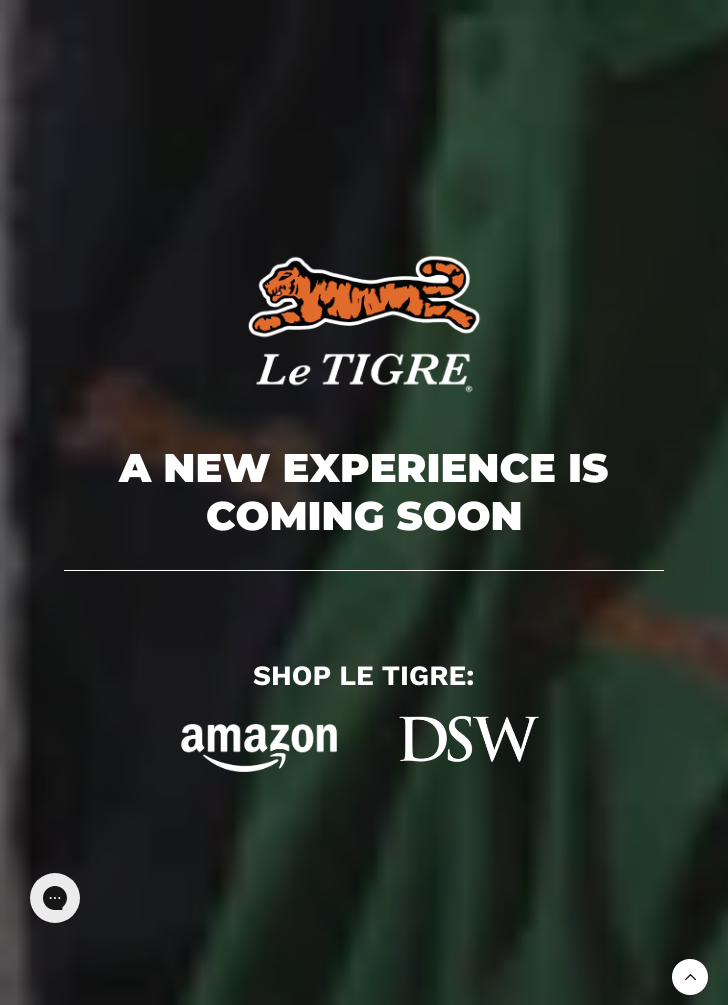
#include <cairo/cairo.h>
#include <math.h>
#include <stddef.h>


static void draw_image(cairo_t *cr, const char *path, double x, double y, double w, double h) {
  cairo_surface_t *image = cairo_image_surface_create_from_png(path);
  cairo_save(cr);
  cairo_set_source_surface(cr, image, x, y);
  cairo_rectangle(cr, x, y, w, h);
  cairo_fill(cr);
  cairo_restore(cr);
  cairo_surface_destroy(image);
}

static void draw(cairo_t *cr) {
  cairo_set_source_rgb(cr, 1, 1, 1);
  cairo_paint(cr);
  draw_image(cr, "images/1.png", 0, 0, 728, 1005);
  draw_image(cr, "images/2.png", 248, 255, 233, 138);
  cairo_set_source_rgb(cr, 1, 1, 1);
  cairo_rectangle(cr, 64, 570, 600, 1);
  cairo_fill(cr);
  draw_image(cr, "images/3.png", 181, 724, 156, 48);
  draw_image(cr, "images/4.png", 399, 716, 140, 46);
  draw_image(cr, "images/5.png", 30, 873, 50, 50);
  cairo_arc(cr, 690, 977, 18, 0, 2 * M_PI);
  cairo_fill(cr);
  draw_image(cr, "images/6.png", 685, 974, 11, 7);
  cairo_select_font_face(cr, "Montserrat Black", CAIRO_FONT_SLANT_NORMAL, CAIRO_FONT_WEIGHT_NORMAL);
  cairo_set_font_size(cr, 40);
  cairo_move_to(cr, 119, 482);
  cairo_show_text(cr, "A NEW EXPERIENCE IS");
  cairo_move_to(cr, 206, 530);
  cairo_show_text(cr, "COMING SOON");
  cairo_select_font_face(cr, "Work Sans", CAIRO_FONT_SLANT_NORMAL, CAIRO_FONT_WEIGHT_BOLD);
  cairo_set_font_size(cr, 28);
  cairo_move_to(cr, 253, 685);
  cairo_show_text(cr, "SHOP LE TIGRE:");
}

int main(void) {
  cairo_surface_t *surface = cairo_image_surface_create(CAIRO_FORMAT_RGB24, 728, 1005);
  cairo_t *cr = cairo_create(surface);
  cairo_font_options_t *options = cairo_font_options_create();
  cairo_font_options_set_hint_metrics(options, CAIRO_HINT_METRICS_OFF);
  cairo_font_options_set_hint_style(options, CAIRO_HINT_STYLE_NONE);
  cairo_set_font_options(cr, options);
  cairo_set_miter_limit(cr, 4);
  draw(cr);
  cairo_surface_write_to_png(surface, "out.png");
  cairo_font_options_destroy(options);
  cairo_destroy(cr);
  cairo_surface_destroy(surface);
  return 0;
}
